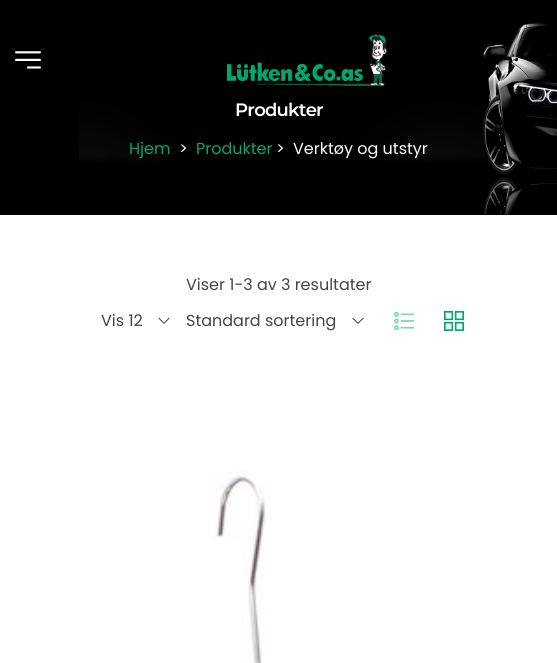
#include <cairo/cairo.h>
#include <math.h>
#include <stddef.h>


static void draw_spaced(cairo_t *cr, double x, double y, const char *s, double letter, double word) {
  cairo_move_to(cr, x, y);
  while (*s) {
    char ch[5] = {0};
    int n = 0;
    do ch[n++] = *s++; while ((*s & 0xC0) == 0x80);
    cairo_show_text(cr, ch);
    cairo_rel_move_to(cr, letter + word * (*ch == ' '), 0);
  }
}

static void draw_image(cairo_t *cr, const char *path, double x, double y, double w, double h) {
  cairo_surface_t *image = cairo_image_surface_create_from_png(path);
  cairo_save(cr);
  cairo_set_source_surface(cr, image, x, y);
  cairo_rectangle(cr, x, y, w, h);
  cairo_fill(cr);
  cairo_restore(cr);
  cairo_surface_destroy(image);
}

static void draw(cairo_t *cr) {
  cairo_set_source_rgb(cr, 1, 1, 1);
  cairo_paint(cr);
  draw_image(cr, "images/3.png", 0, 0, 557, 215);
  draw_image(cr, "images/1.png", 15, 51, 26, 18);
  draw_image(cr, "images/2.png", 227, 34, 160, 52);
  draw_image(cr, "images/4.png", 158, 317, 12, 7);
  draw_image(cr, "images/4.png", 352, 317, 12, 7);
  draw_image(cr, "images/5.png", 394, 311, 20, 20);
  draw_image(cr, "images/6.png", 444, 311, 20, 20);
  draw_image(cr, "images/7.png", 214, 470, 52, 193);
  cairo_select_font_face(cr, "Montserrat SemiBold", CAIRO_FONT_SLANT_NORMAL, CAIRO_FONT_WEIGHT_NORMAL);
  cairo_set_font_size(cr, 18);
  cairo_set_source_rgb(cr, 1, 1, 1);
  draw_spaced(cr, 235, 116, "Produkter", -0.75, 0);
  cairo_select_font_face(cr, "Poppins", CAIRO_FONT_SLANT_NORMAL, CAIRO_FONT_WEIGHT_NORMAL);
  cairo_set_font_size(cr, 16);
  cairo_set_source_rgb(cr, 0, 168 / 255.0, 112 / 255.0);
  cairo_move_to(cr, 129, 154);
  cairo_show_text(cr, "Hjem");
  cairo_set_source_rgb(cr, 1, 1, 1);
  cairo_move_to(cr, 179, 154);
  cairo_show_text(cr, ">");
  cairo_set_source_rgb(cr, 0, 168 / 255.0, 112 / 255.0);
  cairo_move_to(cr, 196, 154);
  cairo_show_text(cr, "Produkter");
  cairo_set_source_rgb(cr, 1, 1, 1);
  cairo_move_to(cr, 276, 154);
  cairo_show_text(cr, ">");
  cairo_move_to(cr, 293, 154);
  cairo_show_text(cr, "Verktøy og utstyr");
  cairo_set_source_rgb(cr, 68 / 255.0, 68 / 255.0, 68 / 255.0);
  cairo_move_to(cr, 186, 290);
  cairo_show_text(cr, "Viser 1-3 av 3 resultater");
  cairo_move_to(cr, 101, 326);
  cairo_show_text(cr, "Vis 12");
  cairo_move_to(cr, 186, 326);
  cairo_show_text(cr, "Standard sortering");
}

int main(void) {
  cairo_surface_t *surface = cairo_image_surface_create(CAIRO_FORMAT_RGB24, 557, 663);
  cairo_t *cr = cairo_create(surface);
  cairo_font_options_t *options = cairo_font_options_create();
  cairo_font_options_set_hint_metrics(options, CAIRO_HINT_METRICS_OFF);
  cairo_font_options_set_hint_style(options, CAIRO_HINT_STYLE_NONE);
  cairo_set_font_options(cr, options);
  cairo_set_miter_limit(cr, 4);
  draw(cr);
  cairo_surface_write_to_png(surface, "out.png");
  cairo_font_options_destroy(options);
  cairo_destroy(cr);
  cairo_surface_destroy(surface);
  return 0;
}
